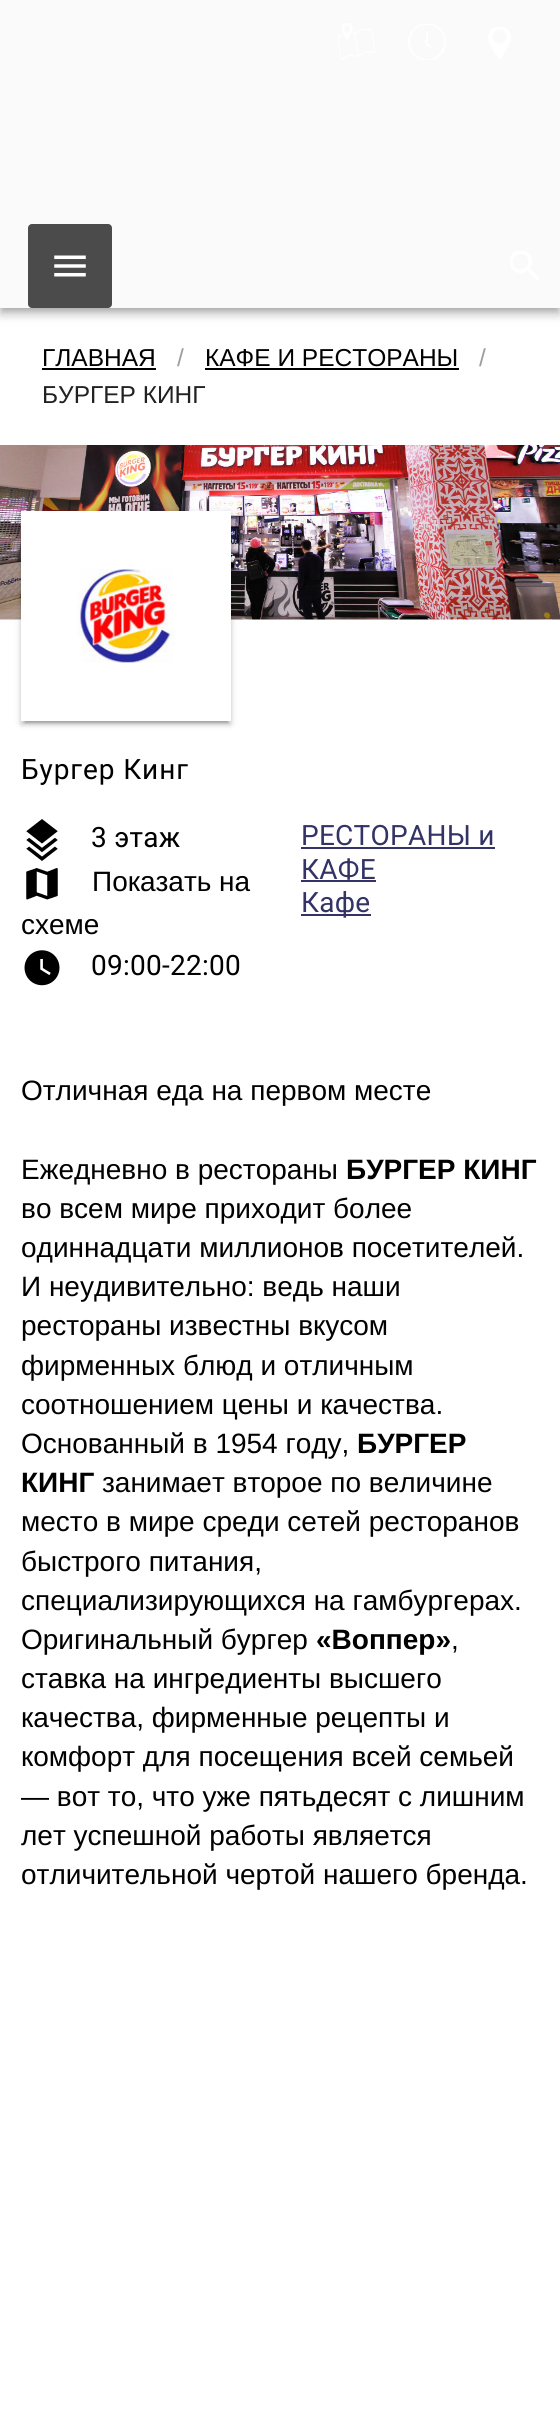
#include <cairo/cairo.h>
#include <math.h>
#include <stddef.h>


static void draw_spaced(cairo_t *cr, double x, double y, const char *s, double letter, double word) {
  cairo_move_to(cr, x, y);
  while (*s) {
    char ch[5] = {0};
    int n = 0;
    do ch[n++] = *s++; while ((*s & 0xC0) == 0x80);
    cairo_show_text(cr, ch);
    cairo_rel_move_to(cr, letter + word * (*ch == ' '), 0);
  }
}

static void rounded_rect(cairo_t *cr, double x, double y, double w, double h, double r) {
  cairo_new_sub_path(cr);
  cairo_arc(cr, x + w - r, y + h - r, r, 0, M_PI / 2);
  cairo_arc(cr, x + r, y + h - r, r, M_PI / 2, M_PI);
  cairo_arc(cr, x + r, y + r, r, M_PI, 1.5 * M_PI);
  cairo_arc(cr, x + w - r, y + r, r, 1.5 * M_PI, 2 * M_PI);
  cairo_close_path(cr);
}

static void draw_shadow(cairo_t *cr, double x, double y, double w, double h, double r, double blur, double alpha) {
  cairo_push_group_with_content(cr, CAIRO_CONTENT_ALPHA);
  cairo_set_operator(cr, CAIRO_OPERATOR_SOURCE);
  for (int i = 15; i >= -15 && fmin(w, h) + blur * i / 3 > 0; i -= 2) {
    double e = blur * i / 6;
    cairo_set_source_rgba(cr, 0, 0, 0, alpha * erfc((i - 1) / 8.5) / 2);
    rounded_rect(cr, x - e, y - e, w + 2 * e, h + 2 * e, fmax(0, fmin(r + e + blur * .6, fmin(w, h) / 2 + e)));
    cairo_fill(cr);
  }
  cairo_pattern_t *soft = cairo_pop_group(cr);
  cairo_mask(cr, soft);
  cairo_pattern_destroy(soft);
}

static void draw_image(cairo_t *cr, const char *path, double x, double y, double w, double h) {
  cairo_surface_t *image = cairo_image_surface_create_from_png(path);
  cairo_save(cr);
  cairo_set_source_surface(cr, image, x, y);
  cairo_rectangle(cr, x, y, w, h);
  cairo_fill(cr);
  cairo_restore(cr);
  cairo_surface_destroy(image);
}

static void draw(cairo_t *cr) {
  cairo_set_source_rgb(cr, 1, 1, 1);
  cairo_paint(cr);
  cairo_set_source_rgb(cr, 0, 0, 0);
  draw_shadow(cr, 0, 2, 560, 308, 0, 9, 0.12);
  draw_shadow(cr, 0, 7, 560, 308, 0, 4.5, 0.14);
  draw_shadow(cr, 2, 5, 556, 305, 0, 3.5, 0.2);
  cairo_set_source_rgb(cr, 250 / 255.0, 250 / 255.0, 250 / 255.0);
  cairo_rectangle(cr, 0, 0, 560, 308);
  cairo_fill(cr);
  draw_image(cr, "images/1.png", 338, 23, 37, 37);
  draw_image(cr, "images/2.png", 408, 24, 38, 36);
  draw_image(cr, "images/3.png", 488, 27, 23, 32);
  cairo_set_source_rgb(cr, 75 / 255.0, 75 / 255.0, 75 / 255.0);
  rounded_rect(cr, 28, 224, 84, 84, 4);
  cairo_fill(cr);
  draw_image(cr, "images/4.png", 54, 255, 32, 22);
  draw_image(cr, "images/5.png", 510, 251, 29, 29);
  cairo_set_source_rgb(cr, 0, 0, 0);
  cairo_rectangle(cr, 42, 368, 114, 2);
  cairo_fill(cr);
  cairo_rectangle(cr, 205, 368, 254, 2);
  cairo_fill(cr);
  draw_image(cr, "images/6.png", 0, 445, 560, 175);
  cairo_set_source_rgb(cr, 0, 0, 0);
  draw_shadow(cr, 21, 513, 210, 210, 0, 4.5, 0.12);
  draw_shadow(cr, 21, 515, 210, 210, 0, 2, 0.14);
  draw_shadow(cr, 25, 520, 203, 203, 0, 1, 0.2);
  cairo_set_source_rgb(cr, 1, 1, 1);
  cairo_rectangle(cr, 21, 511, 210, 210);
  cairo_fill(cr);
  draw_image(cr, "images/7.png", 77, 569, 98, 94);
  draw_image(cr, "images/8.png", 26, 819, 32, 42);
  draw_image(cr, "images/9.png", 26, 868, 32, 32);
  draw_image(cr, "images/10.png", 24, 950, 36, 36);
  cairo_set_source_rgb(cr, 51 / 255.0, 51 / 255.0, 102 / 255.0);
  cairo_rectangle(cr, 301, 847, 194, 2);
  cairo_fill(cr);
  cairo_rectangle(cr, 301, 880, 75, 2);
  cairo_fill(cr);
  cairo_rectangle(cr, 301, 914, 70, 2);
  cairo_fill(cr);
  cairo_select_font_face(cr, "Liberation Sans", CAIRO_FONT_SLANT_NORMAL, CAIRO_FONT_WEIGHT_NORMAL);
  cairo_set_font_size(cr, 24.5);
  cairo_set_source_rgb(cr, 0, 0, 0);
  cairo_move_to(cr, 42, 366);
  cairo_show_text(cr, "ГЛАВНАЯ");
  cairo_set_source_rgb(cr, 158 / 255.0, 158 / 255.0, 158 / 255.0);
  cairo_move_to(cr, 177, 366);
  cairo_show_text(cr, "/");
  cairo_set_source_rgb(cr, 0, 0, 0);
  cairo_move_to(cr, 205, 366);
  cairo_show_text(cr, "КАФЕ И РЕСТОРАНЫ");
  cairo_set_source_rgb(cr, 158 / 255.0, 158 / 255.0, 158 / 255.0);
  cairo_move_to(cr, 479, 366);
  cairo_show_text(cr, "/");
  cairo_set_source_rgb(cr, 33 / 255.0, 33 / 255.0, 33 / 255.0);
  cairo_move_to(cr, 42, 403);
  cairo_show_text(cr, "БУРГЕР КИНГ");
  cairo_select_font_face(cr, "Roboto", CAIRO_FONT_SLANT_NORMAL, CAIRO_FONT_WEIGHT_NORMAL);
  cairo_set_font_size(cr, 28);
  cairo_set_source_rgb(cr, 0, 0, 0);
  draw_spaced(cr, 21, 779, "Бургер Кинг", 0.9, 0);
  draw_spaced(cr, 91, 847, "3 этаж", 0.25, 0);
  cairo_select_font_face(cr, "Liberation Sans", CAIRO_FONT_SLANT_NORMAL, CAIRO_FONT_WEIGHT_NORMAL);
  cairo_move_to(cr, 92, 891);
  cairo_show_text(cr, "Показать на");
  cairo_move_to(cr, 21, 934);
  cairo_show_text(cr, "схеме");
  cairo_select_font_face(cr, "Roboto", CAIRO_FONT_SLANT_NORMAL, CAIRO_FONT_WEIGHT_NORMAL);
  draw_spaced(cr, 91, 975, "09:00-22:00", 0.25, 0);
  cairo_set_source_rgb(cr, 51 / 255.0, 51 / 255.0, 102 / 255.0);
  draw_spaced(cr, 301, 845, "РЕСТОРАНЫ и", 0.25, 0);
  draw_spaced(cr, 301, 879, "КАФЕ", 0.25, 0);
  draw_spaced(cr, 301, 912, "Кафе", 0.25, 0);
  cairo_select_font_face(cr, "Liberation Sans", CAIRO_FONT_SLANT_NORMAL, CAIRO_FONT_WEIGHT_NORMAL);
  cairo_set_source_rgb(cr, 0, 0, 0);
  cairo_move_to(cr, 21, 1100);
  cairo_show_text(cr, "Отличная еда на первом месте");
  cairo_move_to(cr, 21, 1179);
  cairo_show_text(cr, "Ежедневно в рестораны");
  cairo_select_font_face(cr, "Liberation Sans", CAIRO_FONT_SLANT_NORMAL, CAIRO_FONT_WEIGHT_BOLD);
  cairo_move_to(cr, 346, 1179);
  cairo_show_text(cr, "БУРГЕР КИНГ");
  cairo_select_font_face(cr, "Liberation Sans", CAIRO_FONT_SLANT_NORMAL, CAIRO_FONT_WEIGHT_NORMAL);
  cairo_move_to(cr, 21, 1218);
  cairo_show_text(cr, "во всем мире приходит более");
  cairo_move_to(cr, 21, 1257);
  cairo_show_text(cr, "одиннадцати миллионов посетителей.");
  cairo_move_to(cr, 21, 1296);
  cairo_show_text(cr, "И неудивительно: ведь наши");
  cairo_move_to(cr, 21, 1335);
  cairo_show_text(cr, "рестораны известны вкусом");
  cairo_move_to(cr, 21, 1375);
  cairo_show_text(cr, "фирменных блюд и отличным");
  cairo_move_to(cr, 21, 1414);
  cairo_show_text(cr, "соотношением цены и качества.");
  cairo_move_to(cr, 21, 1453);
  cairo_show_text(cr, "Основанный в 1954 году,");
  cairo_select_font_face(cr, "Liberation Sans", CAIRO_FONT_SLANT_NORMAL, CAIRO_FONT_WEIGHT_BOLD);
  cairo_move_to(cr, 357, 1453);
  cairo_show_text(cr, "БУРГЕР");
  cairo_move_to(cr, 21, 1492);
  cairo_show_text(cr, "КИНГ");
  cairo_select_font_face(cr, "Liberation Sans", CAIRO_FONT_SLANT_NORMAL, CAIRO_FONT_WEIGHT_NORMAL);
  cairo_move_to(cr, 102, 1492);
  cairo_show_text(cr, "занимает второе по величине");
  cairo_move_to(cr, 21, 1531);
  cairo_show_text(cr, "место в мире среди сетей ресторанов");
  cairo_move_to(cr, 21, 1571);
  cairo_show_text(cr, "быстрого питания,");
  cairo_move_to(cr, 21, 1610);
  cairo_show_text(cr, "специализирующихся на гамбургерах.");
  cairo_move_to(cr, 21, 1649);
  cairo_show_text(cr, "Оригинальный бургер");
  cairo_select_font_face(cr, "Liberation Sans", CAIRO_FONT_SLANT_NORMAL, CAIRO_FONT_WEIGHT_BOLD);
  cairo_move_to(cr, 316, 1649);
  cairo_show_text(cr, "«Воппер»");
  cairo_select_font_face(cr, "Liberation Sans", CAIRO_FONT_SLANT_NORMAL, CAIRO_FONT_WEIGHT_NORMAL);
  cairo_move_to(cr, 451, 1649);
  cairo_show_text(cr, ",");
  cairo_move_to(cr, 21, 1688);
  cairo_show_text(cr, "ставка на ингредиенты высшего");
  cairo_move_to(cr, 21, 1727);
  cairo_show_text(cr, "качества, фирменные рецепты и");
  cairo_move_to(cr, 21, 1766);
  cairo_show_text(cr, "комфорт для посещения всей семьей");
  cairo_move_to(cr, 21, 1806);
  cairo_show_text(cr, "— вот то, что уже пятьдесят с лишним");
  cairo_move_to(cr, 21, 1845);
  cairo_show_text(cr, "лет успешной работы является");
  cairo_move_to(cr, 21, 1884);
  cairo_show_text(cr, "отличительной чертой нашего бренда.");
}

int main(void) {
  cairo_surface_t *surface = cairo_image_surface_create(CAIRO_FORMAT_RGB24, 560, 2427);
  cairo_t *cr = cairo_create(surface);
  cairo_font_options_t *options = cairo_font_options_create();
  cairo_font_options_set_hint_metrics(options, CAIRO_HINT_METRICS_OFF);
  cairo_font_options_set_hint_style(options, CAIRO_HINT_STYLE_NONE);
  cairo_set_font_options(cr, options);
  cairo_set_miter_limit(cr, 4);
  draw(cr);
  cairo_surface_write_to_png(surface, "out.png");
  cairo_font_options_destroy(options);
  cairo_destroy(cr);
  cairo_surface_destroy(surface);
  return 0;
}
